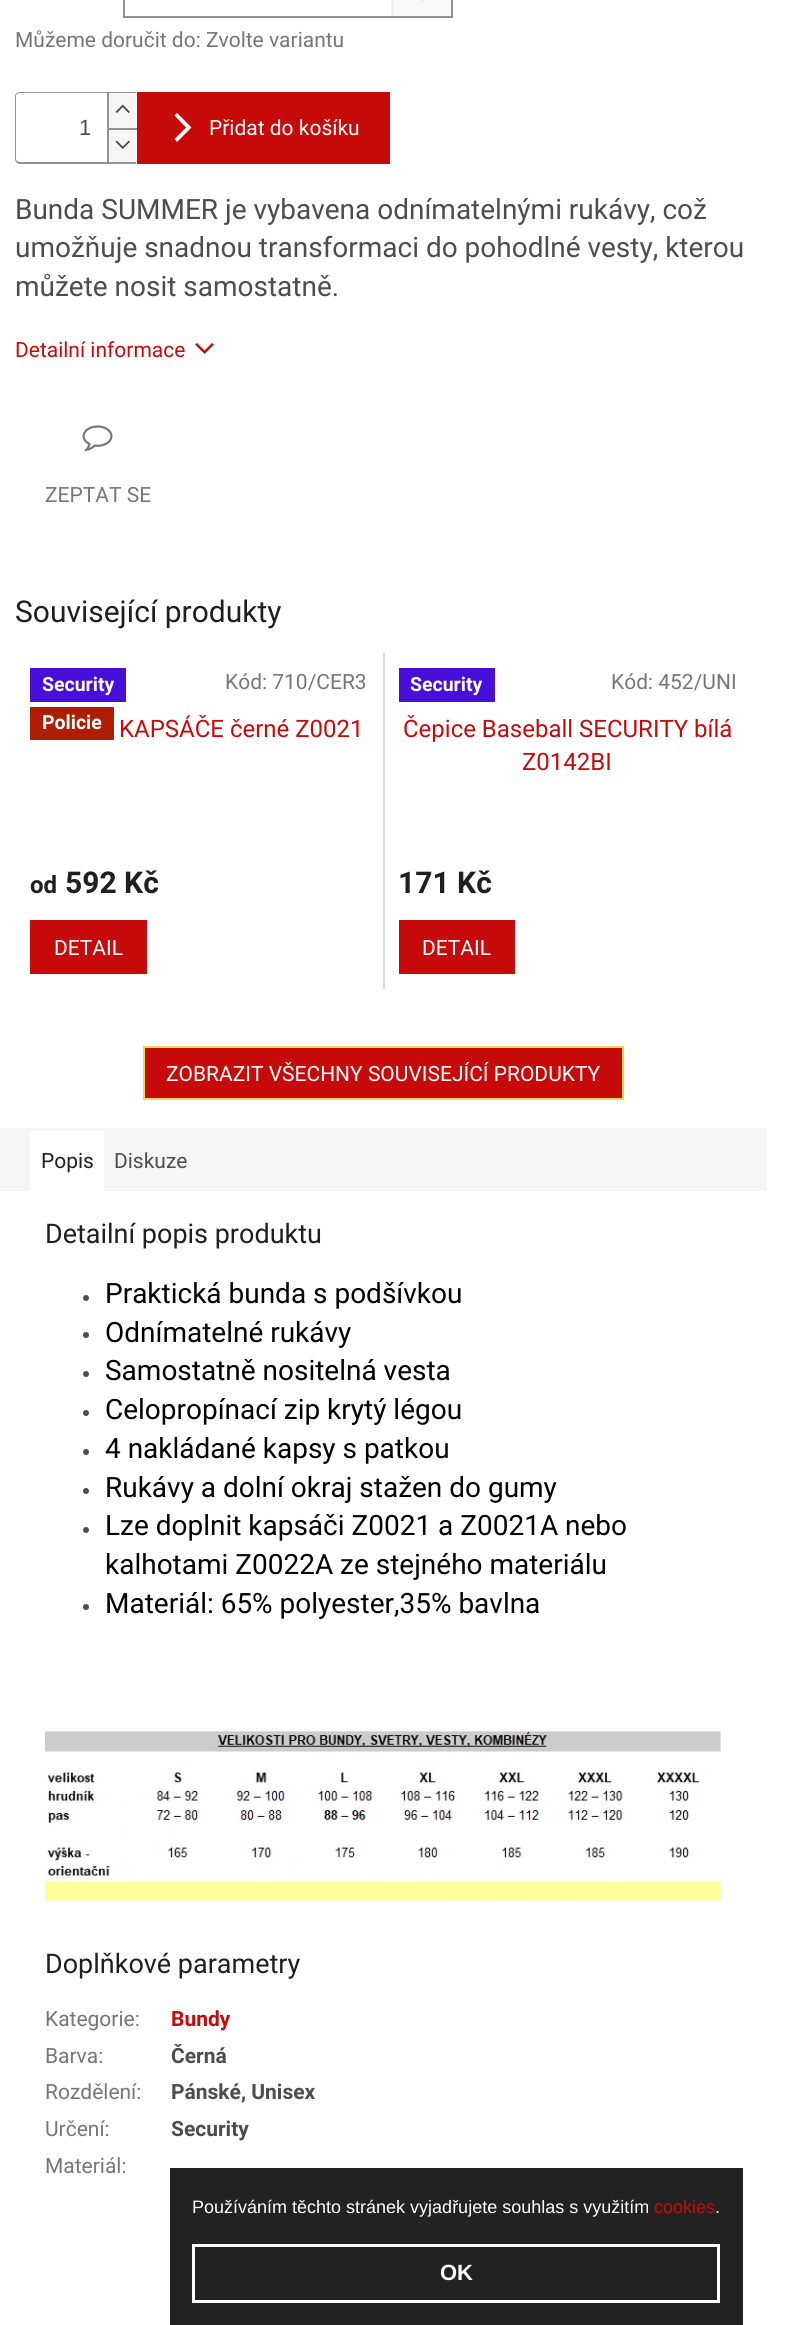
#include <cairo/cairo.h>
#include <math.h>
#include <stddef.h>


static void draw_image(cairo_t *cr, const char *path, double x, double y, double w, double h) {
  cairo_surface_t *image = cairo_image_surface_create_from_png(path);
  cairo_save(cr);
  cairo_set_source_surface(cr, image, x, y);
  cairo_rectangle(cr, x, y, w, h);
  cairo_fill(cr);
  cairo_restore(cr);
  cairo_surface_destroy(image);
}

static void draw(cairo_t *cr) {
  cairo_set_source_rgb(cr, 1, 1, 1);
  cairo_paint(cr);
  draw_image(cr, "images/1.png", 391, 0, 60, 16);
  cairo_rectangle(cr, 124, -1, 328, 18);
  cairo_set_source_rgb(cr, 145 / 255.0, 145 / 255.0, 145 / 255.0);
  cairo_stroke(cr);
  cairo_set_fill_rule(cr, CAIRO_FILL_RULE_EVEN_ODD);
  cairo_new_path(cr);
  cairo_move_to(cr, 20, 92);
  cairo_line_to(cr, 136, 92);
  cairo_line_to(cr, 136, 164);
  cairo_line_to(cr, 20, 164);
  cairo_curve_to(cr, 17, 164, 15, 161, 15, 159);
  cairo_line_to(cr, 15, 96);
  cairo_curve_to(cr, 15, 94, 17, 92, 20, 92);
  cairo_close_path(cr);
  cairo_move_to(cr, 20, 93);
  cairo_line_to(cr, 136, 93);
  cairo_line_to(cr, 136, 162);
  cairo_line_to(cr, 20, 162);
  cairo_curve_to(cr, 18, 162, 16, 161, 16, 159);
  cairo_line_to(cr, 16, 96);
  cairo_curve_to(cr, 16, 94, 18, 93, 20, 93);
  cairo_close_path(cr);
  cairo_fill(cr);
  cairo_set_source_rgb(cr, 246 / 255.0, 246 / 255.0, 246 / 255.0);
  cairo_rectangle(cr, 109, 93, 28, 35);
  cairo_fill(cr);
  cairo_set_source_rgb(cr, 145 / 255.0, 145 / 255.0, 145 / 255.0);
  cairo_rectangle(cr, 107, 93, 2, 35);
  cairo_fill(cr);
  draw_image(cr, "images/2.png", 115, 104, 15, 9);
  cairo_set_source_rgb(cr, 246 / 255.0, 246 / 255.0, 246 / 255.0);
  cairo_rectangle(cr, 109, 130, 28, 32);
  cairo_fill(cr);
  cairo_set_source_rgb(cr, 145 / 255.0, 145 / 255.0, 145 / 255.0);
  cairo_rectangle(cr, 107, 128, 30, 2);
  cairo_fill(cr);
  cairo_rectangle(cr, 107, 128, 2, 34);
  cairo_fill(cr);
  draw_image(cr, "images/3.png", 115, 140, 15, 9);
  cairo_set_source_rgb(cr, 199 / 255.0, 10 / 255.0, 10 / 255.0);
  cairo_rectangle(cr, 137, 92, 253, 72);
  cairo_fill(cr);
  cairo_set_source_rgb(cr, 1, 1, 1);
  cairo_set_fill_rule(cr, CAIRO_FILL_RULE_WINDING);
  cairo_new_path(cr);
  cairo_move_to(cr, 177, 142);
  cairo_line_to(cr, 174.5, 139);
  cairo_line_to(cr, 186, 127.5);
  cairo_line_to(cr, 174.5, 115.5);
  cairo_line_to(cr, 177, 113);
  cairo_line_to(cr, 191.5, 127.5);
  cairo_close_path(cr);
  cairo_fill(cr);
  cairo_set_source_rgb(cr, 199 / 255.0, 10 / 255.0, 10 / 255.0);
  cairo_new_path(cr);
  cairo_move_to(cr, 195, 344.5);
  cairo_line_to(cr, 197, 343);
  cairo_line_to(cr, 204.5, 350.5);
  cairo_line_to(cr, 212, 343);
  cairo_line_to(cr, 214, 344.5);
  cairo_line_to(cr, 204.5, 354);
  cairo_close_path(cr);
  cairo_fill(cr);
  draw_image(cr, "images/4.png", 82, 425, 31, 27);
  cairo_set_source_rgb(cr, 218 / 255.0, 218 / 255.0, 218 / 255.0);
  cairo_rectangle(cr, 383, 653, 2, 336);
  cairo_fill(cr);
  cairo_set_source_rgb(cr, 70 / 255.0, 16 / 255.0, 218 / 255.0);
  cairo_rectangle(cr, 30, 668, 96, 34);
  cairo_fill(cr);
  cairo_set_source_rgb(cr, 174 / 255.0, 30 / 255.0, 4 / 255.0);
  cairo_rectangle(cr, 30, 707, 84, 33);
  cairo_fill(cr);
  cairo_set_source_rgb(cr, 199 / 255.0, 10 / 255.0, 10 / 255.0);
  cairo_rectangle(cr, 30, 920, 117, 54);
  cairo_fill(cr);
  cairo_set_source_rgb(cr, 70 / 255.0, 16 / 255.0, 218 / 255.0);
  cairo_rectangle(cr, 399, 668, 96, 34);
  cairo_fill(cr);
  cairo_set_source_rgb(cr, 199 / 255.0, 10 / 255.0, 10 / 255.0);
  cairo_rectangle(cr, 399, 920, 116, 54);
  cairo_fill(cr);
  cairo_rectangle(cr, 144, 1047, 479, 52);
  cairo_fill_preserve(cr);
  cairo_set_source_rgb(cr, 238 / 255.0, 216 / 255.0, 79 / 255.0);
  cairo_stroke(cr);
  cairo_set_source_rgb(cr, 246 / 255.0, 246 / 255.0, 246 / 255.0);
  cairo_rectangle(cr, 0, 1128, 767, 63);
  cairo_fill(cr);
  cairo_set_source_rgb(cr, 1, 1, 1);
  cairo_rectangle(cr, 30, 1131, 74, 60);
  cairo_fill(cr);
  cairo_set_source_rgb(cr, 77 / 255.0, 77 / 255.0, 77 / 255.0);
  cairo_arc(cr, 86, 1298, 3, 0, 2 * M_PI);
  cairo_fill(cr);
  cairo_arc(cr, 86, 1335, 3, 0, 2 * M_PI);
  cairo_fill(cr);
  cairo_arc(cr, 86, 1374, 3, 0, 2 * M_PI);
  cairo_fill(cr);
  cairo_arc(cr, 86, 1413, 3, 0, 2 * M_PI);
  cairo_fill(cr);
  cairo_arc(cr, 86, 1452, 3, 0, 2 * M_PI);
  cairo_fill(cr);
  cairo_arc(cr, 86, 1491, 3, 0, 2 * M_PI);
  cairo_fill(cr);
  cairo_arc(cr, 86, 1530, 3, 0, 2 * M_PI);
  cairo_fill(cr);
  cairo_arc(cr, 86, 1607, 3, 0, 2 * M_PI);
  cairo_fill(cr);
  draw_image(cr, "images/5.png", 45, 1728, 677, 173);
  cairo_set_source_rgb(cr, 34 / 255.0, 34 / 255.0, 34 / 255.0);
  cairo_rectangle(cr, 170, 2168, 573, 157);
  cairo_fill(cr);
  cairo_rectangle(cr, 193.5, 2245.5, 525, 56);
  cairo_set_source_rgb(cr, 1, 1, 1);
  cairo_set_line_width(cr, 3);
  cairo_stroke(cr);
  cairo_select_font_face(cr, "Roboto", CAIRO_FONT_SLANT_NORMAL, CAIRO_FONT_WEIGHT_NORMAL);
  cairo_set_font_size(cr, 21);
  cairo_set_source_rgb(cr, 118 / 255.0, 118 / 255.0, 118 / 255.0);
  cairo_move_to(cr, 15, 47);
  cairo_show_text(cr, "Můžeme doručit do: Zvolte variantu");
  cairo_select_font_face(cr, "Liberation Sans", CAIRO_FONT_SLANT_NORMAL, CAIRO_FONT_WEIGHT_NORMAL);
  cairo_set_font_size(cr, 22);
  cairo_set_source_rgb(cr, 77 / 255.0, 77 / 255.0, 77 / 255.0);
  cairo_move_to(cr, 79, 135);
  cairo_show_text(cr, "1");
  cairo_select_font_face(cr, "Roboto", CAIRO_FONT_SLANT_NORMAL, CAIRO_FONT_WEIGHT_NORMAL);
  cairo_set_font_size(cr, 21);
  cairo_set_source_rgb(cr, 1, 1, 1);
  cairo_move_to(cr, 209, 135);
  cairo_show_text(cr, "Přidat do košíku");
  cairo_set_font_size(cr, 28);
  cairo_set_source_rgb(cr, 77 / 255.0, 77 / 255.0, 77 / 255.0);
  cairo_move_to(cr, 15, 219);
  cairo_show_text(cr, "Bunda SUMMER je vybavena odnímatelnými rukávy, což");
  cairo_move_to(cr, 15, 257);
  cairo_show_text(cr, "umožňuje snadnou transformaci do pohodlné vesty, kterou");
  cairo_move_to(cr, 15, 296);
  cairo_show_text(cr, "můžete nosit samostatně.");
  cairo_set_font_size(cr, 21);
  cairo_set_source_rgb(cr, 199 / 255.0, 10 / 255.0, 10 / 255.0);
  cairo_move_to(cr, 15, 357);
  cairo_show_text(cr, "Detailní informace");
  cairo_set_source_rgb(cr, 118 / 255.0, 118 / 255.0, 118 / 255.0);
  cairo_move_to(cr, 45, 502);
  cairo_show_text(cr, "ZEPTAT SE");
  cairo_set_font_size(cr, 30);
  cairo_set_source_rgb(cr, 31 / 255.0, 31 / 255.0, 31 / 255.0);
  cairo_move_to(cr, 15, 622);
  cairo_show_text(cr, "Související produkty");
  cairo_select_font_face(cr, "Roboto", CAIRO_FONT_SLANT_NORMAL, CAIRO_FONT_WEIGHT_BOLD);
  cairo_set_font_size(cr, 19.5);
  cairo_set_source_rgb(cr, 1, 1, 1);
  cairo_move_to(cr, 42, 691);
  cairo_show_text(cr, "Security");
  cairo_move_to(cr, 42, 729);
  cairo_show_text(cr, "Policie");
  cairo_select_font_face(cr, "Roboto", CAIRO_FONT_SLANT_NORMAL, CAIRO_FONT_WEIGHT_NORMAL);
  cairo_set_font_size(cr, 21);
  cairo_set_source_rgb(cr, 118 / 255.0, 118 / 255.0, 118 / 255.0);
  cairo_move_to(cr, 225, 689);
  cairo_show_text(cr, "Kód: 710/CER3");
  cairo_set_font_size(cr, 24);
  cairo_set_source_rgb(cr, 199 / 255.0, 10 / 255.0, 10 / 255.0);
  cairo_move_to(cr, 119, 737);
  cairo_show_text(cr, "KAPSÁČE černé Z0021");
  cairo_select_font_face(cr, "Roboto", CAIRO_FONT_SLANT_NORMAL, CAIRO_FONT_WEIGHT_BOLD);
  cairo_set_source_rgb(cr, 31 / 255.0, 31 / 255.0, 31 / 255.0);
  cairo_move_to(cr, 30, 893);
  cairo_show_text(cr, "od");
  cairo_set_font_size(cr, 30);
  cairo_move_to(cr, 65, 893);
  cairo_show_text(cr, "592 Kč");
  cairo_select_font_face(cr, "Roboto", CAIRO_FONT_SLANT_NORMAL, CAIRO_FONT_WEIGHT_NORMAL);
  cairo_set_font_size(cr, 21);
  cairo_set_source_rgb(cr, 1, 1, 1);
  cairo_move_to(cr, 54, 955);
  cairo_show_text(cr, "DETAIL");
  cairo_select_font_face(cr, "Roboto", CAIRO_FONT_SLANT_NORMAL, CAIRO_FONT_WEIGHT_BOLD);
  cairo_set_font_size(cr, 19.5);
  cairo_move_to(cr, 410, 691);
  cairo_show_text(cr, "Security");
  cairo_select_font_face(cr, "Roboto", CAIRO_FONT_SLANT_NORMAL, CAIRO_FONT_WEIGHT_NORMAL);
  cairo_set_font_size(cr, 21);
  cairo_set_source_rgb(cr, 118 / 255.0, 118 / 255.0, 118 / 255.0);
  cairo_move_to(cr, 611, 689);
  cairo_show_text(cr, "Kód: 452/UNI");
  cairo_set_font_size(cr, 24);
  cairo_set_source_rgb(cr, 199 / 255.0, 10 / 255.0, 10 / 255.0);
  cairo_move_to(cr, 403, 737);
  cairo_show_text(cr, "Čepice Baseball SECURITY bílá");
  cairo_move_to(cr, 522, 770);
  cairo_show_text(cr, "Z0142BI");
  cairo_select_font_face(cr, "Roboto", CAIRO_FONT_SLANT_NORMAL, CAIRO_FONT_WEIGHT_BOLD);
  cairo_set_font_size(cr, 30);
  cairo_set_source_rgb(cr, 31 / 255.0, 31 / 255.0, 31 / 255.0);
  cairo_move_to(cr, 398, 893);
  cairo_show_text(cr, "171 Kč");
  cairo_select_font_face(cr, "Roboto", CAIRO_FONT_SLANT_NORMAL, CAIRO_FONT_WEIGHT_NORMAL);
  cairo_set_font_size(cr, 21);
  cairo_set_source_rgb(cr, 1, 1, 1);
  cairo_move_to(cr, 422, 955);
  cairo_show_text(cr, "DETAIL");
  cairo_move_to(cr, 166, 1081);
  cairo_show_text(cr, "ZOBRAZIT VŠECHNY SOUVISEJÍCÍ PRODUKTY");
  cairo_set_source_rgb(cr, 31 / 255.0, 31 / 255.0, 31 / 255.0);
  cairo_move_to(cr, 41, 1168);
  cairo_show_text(cr, "Popis");
  cairo_set_source_rgb(cr, 77 / 255.0, 77 / 255.0, 77 / 255.0);
  cairo_move_to(cr, 114, 1168);
  cairo_show_text(cr, "Diskuze");
  cairo_set_font_size(cr, 27);
  cairo_set_source_rgb(cr, 31 / 255.0, 31 / 255.0, 31 / 255.0);
  cairo_move_to(cr, 45, 1243);
  cairo_show_text(cr, "Detailní popis produktu");
  cairo_set_font_size(cr, 28);
  cairo_set_source_rgb(cr, 0, 0, 0);
  cairo_move_to(cr, 105, 1303);
  cairo_show_text(cr, "Praktická bunda s podšívkou");
  cairo_move_to(cr, 105, 1342);
  cairo_show_text(cr, "Odnímatelné rukávy");
  cairo_move_to(cr, 105, 1380);
  cairo_show_text(cr, "Samostatně nositelná vesta");
  cairo_move_to(cr, 105, 1419);
  cairo_show_text(cr, "Celopropínací zip krytý légou");
  cairo_move_to(cr, 105, 1458);
  cairo_show_text(cr, "4 nakládané kapsy s patkou");
  cairo_move_to(cr, 105, 1497);
  cairo_show_text(cr, "Rukávy a dolní okraj stažen do gumy");
  cairo_move_to(cr, 105, 1535);
  cairo_show_text(cr, "Lze doplnit kapsáči Z0021 a Z0021A nebo");
  cairo_move_to(cr, 105, 1574);
  cairo_show_text(cr, "kalhotami Z0022A ze stejného materiálu");
  cairo_move_to(cr, 105, 1613);
  cairo_show_text(cr, "Materiál: 65% polyester,35% bavlna");
  cairo_set_font_size(cr, 27);
  cairo_set_source_rgb(cr, 31 / 255.0, 31 / 255.0, 31 / 255.0);
  cairo_move_to(cr, 45, 1973);
  cairo_show_text(cr, "Doplňkové parametry");
  cairo_set_font_size(cr, 21);
  cairo_set_source_rgb(cr, 118 / 255.0, 118 / 255.0, 118 / 255.0);
  cairo_move_to(cr, 45, 2026);
  cairo_show_text(cr, "Kategorie:");
  cairo_select_font_face(cr, "Roboto", CAIRO_FONT_SLANT_NORMAL, CAIRO_FONT_WEIGHT_BOLD);
  cairo_set_source_rgb(cr, 199 / 255.0, 10 / 255.0, 10 / 255.0);
  cairo_move_to(cr, 171, 2026);
  cairo_show_text(cr, "Bundy");
  cairo_select_font_face(cr, "Roboto", CAIRO_FONT_SLANT_NORMAL, CAIRO_FONT_WEIGHT_NORMAL);
  cairo_set_source_rgb(cr, 118 / 255.0, 118 / 255.0, 118 / 255.0);
  cairo_move_to(cr, 45, 2063);
  cairo_show_text(cr, "Barva:");
  cairo_select_font_face(cr, "Roboto", CAIRO_FONT_SLANT_NORMAL, CAIRO_FONT_WEIGHT_BOLD);
  cairo_set_source_rgb(cr, 77 / 255.0, 77 / 255.0, 77 / 255.0);
  cairo_move_to(cr, 171, 2063);
  cairo_show_text(cr, "Černá");
  cairo_select_font_face(cr, "Roboto", CAIRO_FONT_SLANT_NORMAL, CAIRO_FONT_WEIGHT_NORMAL);
  cairo_set_source_rgb(cr, 118 / 255.0, 118 / 255.0, 118 / 255.0);
  cairo_move_to(cr, 45, 2099);
  cairo_show_text(cr, "Rozdělení:");
  cairo_select_font_face(cr, "Roboto", CAIRO_FONT_SLANT_NORMAL, CAIRO_FONT_WEIGHT_BOLD);
  cairo_set_source_rgb(cr, 77 / 255.0, 77 / 255.0, 77 / 255.0);
  cairo_move_to(cr, 171, 2099);
  cairo_show_text(cr, "Pánské, Unisex");
  cairo_select_font_face(cr, "Roboto", CAIRO_FONT_SLANT_NORMAL, CAIRO_FONT_WEIGHT_NORMAL);
  cairo_set_source_rgb(cr, 118 / 255.0, 118 / 255.0, 118 / 255.0);
  cairo_move_to(cr, 45, 2136);
  cairo_show_text(cr, "Určení:");
  cairo_select_font_face(cr, "Roboto", CAIRO_FONT_SLANT_NORMAL, CAIRO_FONT_WEIGHT_BOLD);
  cairo_set_source_rgb(cr, 77 / 255.0, 77 / 255.0, 77 / 255.0);
  cairo_move_to(cr, 171, 2136);
  cairo_show_text(cr, "Security");
  cairo_select_font_face(cr, "Roboto", CAIRO_FONT_SLANT_NORMAL, CAIRO_FONT_WEIGHT_NORMAL);
  cairo_set_source_rgb(cr, 118 / 255.0, 118 / 255.0, 118 / 255.0);
  cairo_move_to(cr, 45, 2173);
  cairo_show_text(cr, "Materiál:");
  cairo_select_font_face(cr, "Liberation Sans", CAIRO_FONT_SLANT_NORMAL, CAIRO_FONT_WEIGHT_NORMAL);
  cairo_set_font_size(cr, 18);
  cairo_set_source_rgb(cr, 1, 1, 1);
  cairo_move_to(cr, 192, 2213);
  cairo_show_text(cr, "Používáním těchto stránek vyjadřujete souhlas s využitím");
  cairo_set_source_rgb(cr, 199 / 255.0, 10 / 255.0, 10 / 255.0);
  cairo_move_to(cr, 654, 2213);
  cairo_show_text(cr, "cookies");
  cairo_set_source_rgb(cr, 1, 1, 1);
  cairo_move_to(cr, 715, 2213);
  cairo_show_text(cr, ".");
  cairo_select_font_face(cr, "Liberation Sans", CAIRO_FONT_SLANT_NORMAL, CAIRO_FONT_WEIGHT_BOLD);
  cairo_set_font_size(cr, 22);
  cairo_move_to(cr, 440, 2280);
  cairo_show_text(cr, "OK");
}

int main(void) {
  cairo_surface_t *surface = cairo_image_surface_create(CAIRO_FORMAT_RGB24, 788, 2325);
  cairo_t *cr = cairo_create(surface);
  cairo_font_options_t *options = cairo_font_options_create();
  cairo_font_options_set_hint_metrics(options, CAIRO_HINT_METRICS_OFF);
  cairo_font_options_set_hint_style(options, CAIRO_HINT_STYLE_NONE);
  cairo_set_font_options(cr, options);
  cairo_set_miter_limit(cr, 4);
  draw(cr);
  cairo_surface_write_to_png(surface, "out.png");
  cairo_font_options_destroy(options);
  cairo_destroy(cr);
  cairo_surface_destroy(surface);
  return 0;
}
